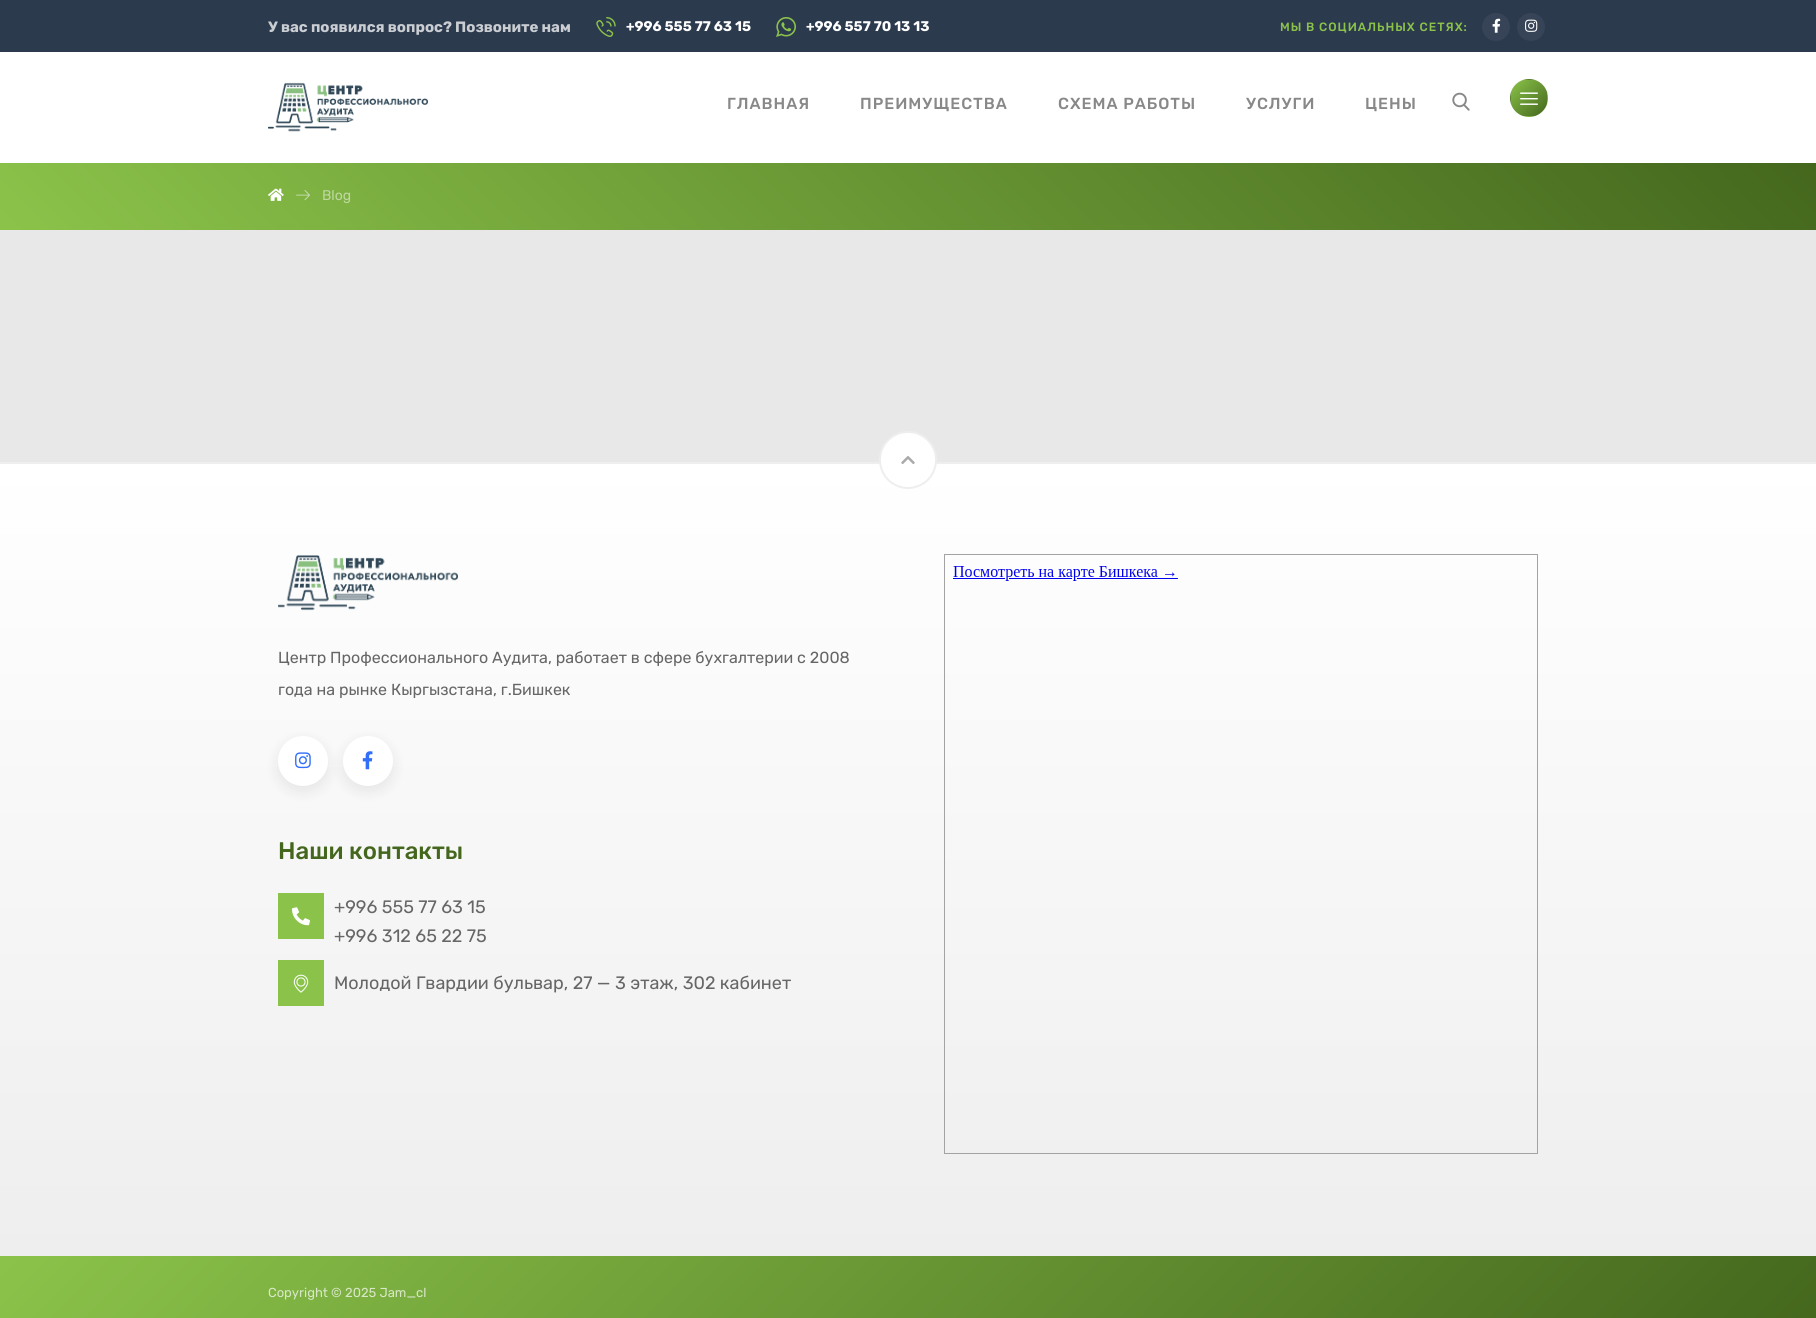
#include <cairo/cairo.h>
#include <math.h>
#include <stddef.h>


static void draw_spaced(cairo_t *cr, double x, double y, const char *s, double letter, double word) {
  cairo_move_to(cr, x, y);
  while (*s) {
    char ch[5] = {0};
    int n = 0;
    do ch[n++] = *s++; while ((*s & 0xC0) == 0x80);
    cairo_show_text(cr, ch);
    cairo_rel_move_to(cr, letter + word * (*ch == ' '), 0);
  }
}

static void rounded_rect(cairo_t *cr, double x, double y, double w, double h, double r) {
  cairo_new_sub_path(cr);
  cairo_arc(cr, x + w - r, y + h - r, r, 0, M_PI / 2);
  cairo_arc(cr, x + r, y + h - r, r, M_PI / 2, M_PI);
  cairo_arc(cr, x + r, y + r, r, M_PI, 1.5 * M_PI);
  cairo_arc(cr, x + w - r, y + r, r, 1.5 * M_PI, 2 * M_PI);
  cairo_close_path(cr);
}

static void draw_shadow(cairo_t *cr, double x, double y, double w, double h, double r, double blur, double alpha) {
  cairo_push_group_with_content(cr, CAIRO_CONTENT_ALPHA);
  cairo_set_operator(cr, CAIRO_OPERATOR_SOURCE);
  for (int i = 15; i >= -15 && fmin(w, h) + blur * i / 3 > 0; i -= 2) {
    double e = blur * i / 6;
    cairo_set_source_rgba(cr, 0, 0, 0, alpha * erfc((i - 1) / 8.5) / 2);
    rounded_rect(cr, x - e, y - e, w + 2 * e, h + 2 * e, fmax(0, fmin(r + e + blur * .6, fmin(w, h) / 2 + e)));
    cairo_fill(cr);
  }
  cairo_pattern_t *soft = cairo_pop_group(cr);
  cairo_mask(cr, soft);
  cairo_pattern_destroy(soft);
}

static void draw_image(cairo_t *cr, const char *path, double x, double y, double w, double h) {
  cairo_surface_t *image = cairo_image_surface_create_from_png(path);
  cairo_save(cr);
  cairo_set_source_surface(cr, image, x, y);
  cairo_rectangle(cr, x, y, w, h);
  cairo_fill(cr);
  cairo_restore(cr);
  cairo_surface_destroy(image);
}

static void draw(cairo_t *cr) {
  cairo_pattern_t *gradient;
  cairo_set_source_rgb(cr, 232 / 255.0, 232 / 255.0, 232 / 255.0);
  cairo_paint(cr);
  cairo_set_source_rgb(cr, 44 / 255.0, 58 / 255.0, 78 / 255.0);
  cairo_rectangle(cr, 0, 0, 1816, 52);
  cairo_fill(cr);
  draw_image(cr, "images/1.png", 596, 17, 20, 20);
  draw_image(cr, "images/2.png", 776, 17, 20, 20);
  cairo_set_source_rgb(cr, 55 / 255.0, 68 / 255.0, 87 / 255.0);
  cairo_arc(cr, 1496, 27, 14, 0, 2 * M_PI);
  cairo_fill(cr);
  draw_image(cr, "images/3.png", 1492, 18, 9, 15);
  cairo_arc(cr, 1531, 27, 14, 0, 2 * M_PI);
  cairo_fill(cr);
  draw_image(cr, "images/4.png", 1525, 19, 13, 13);
  cairo_set_source_rgb(cr, 1, 1, 1);
  cairo_rectangle(cr, 0, 52, 1816, 111);
  cairo_fill(cr);
  draw_image(cr, "images/5.png", 268, 82, 160, 50);
  draw_image(cr, "images/6.png", 1452, 92, 18, 19);
  cairo_save(cr);
  rounded_rect(cr, 1510, 79, 38, 38, 19);
  cairo_clip(cr);
  gradient = cairo_pattern_create_linear(1511, 44, 1547, 80);
  cairo_pattern_add_color_stop_rgba(gradient, 0, 139 / 255.0, 195 / 255.0, 74 / 255.0, 1);
  cairo_pattern_add_color_stop_rgba(gradient, 1, 68 / 255.0, 103 / 255.0, 29 / 255.0, 1);
  cairo_set_source(cr, gradient);
  cairo_pattern_destroy(gradient);
  cairo_rectangle(cr, 1523, 79, 12, 1);
  cairo_fill(cr);
  gradient = cairo_pattern_create_linear(1475, 80, 1511, 116);
  cairo_pattern_add_color_stop_rgba(gradient, 0, 139 / 255.0, 195 / 255.0, 74 / 255.0, 1);
  cairo_pattern_add_color_stop_rgba(gradient, 1, 68 / 255.0, 103 / 255.0, 29 / 255.0, 1);
  cairo_set_source(cr, gradient);
  cairo_pattern_destroy(gradient);
  cairo_rectangle(cr, 1510, 92, 1, 12);
  cairo_fill(cr);
  gradient = cairo_pattern_create_linear(1511, 80, 1547, 116);
  cairo_pattern_add_color_stop_rgba(gradient, 0, 139 / 255.0, 195 / 255.0, 74 / 255.0, 1);
  cairo_pattern_add_color_stop_rgba(gradient, 1, 68 / 255.0, 103 / 255.0, 29 / 255.0, 1);
  cairo_set_source(cr, gradient);
  cairo_pattern_destroy(gradient);
  cairo_rectangle(cr, 1511, 80, 36, 36);
  cairo_fill(cr);
  gradient = cairo_pattern_create_linear(1547, 80, 1583, 116);
  cairo_pattern_add_color_stop_rgba(gradient, 0, 139 / 255.0, 195 / 255.0, 74 / 255.0, 1);
  cairo_pattern_add_color_stop_rgba(gradient, 1, 68 / 255.0, 103 / 255.0, 29 / 255.0, 1);
  cairo_set_source(cr, gradient);
  cairo_pattern_destroy(gradient);
  cairo_rectangle(cr, 1547, 92, 1, 12);
  cairo_fill(cr);
  gradient = cairo_pattern_create_linear(1511, 116, 1547, 152);
  cairo_pattern_add_color_stop_rgba(gradient, 0, 139 / 255.0, 195 / 255.0, 74 / 255.0, 1);
  cairo_pattern_add_color_stop_rgba(gradient, 1, 68 / 255.0, 103 / 255.0, 29 / 255.0, 1);
  cairo_set_source(cr, gradient);
  cairo_pattern_destroy(gradient);
  cairo_rectangle(cr, 1523, 116, 12, 1);
  cairo_fill(cr);
  cairo_restore(cr);
  draw_image(cr, "images/7.png", 1520, 92, 18, 13);
  gradient = cairo_pattern_create_linear(437, 667, 1379, -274);
  cairo_pattern_add_color_stop_rgba(gradient, 0, 139 / 255.0, 195 / 255.0, 74 / 255.0, 1);
  cairo_pattern_add_color_stop_rgba(gradient, 1, 68 / 255.0, 103 / 255.0, 29 / 255.0, 1);
  cairo_set_source(cr, gradient);
  cairo_pattern_destroy(gradient);
  cairo_rectangle(cr, 0, 163, 1816, 67);
  cairo_fill(cr);
  draw_image(cr, "images/8.png", 268, 188, 16, 13);
  draw_image(cr, "images/9.png", 296, 190, 14, 11);
  gradient = cairo_pattern_create_linear(908, 464, 908, 1256);
  cairo_pattern_add_color_stop_rgba(gradient, 0, 1, 1, 1, 1);
  cairo_pattern_add_color_stop_rgba(gradient, 1, 238 / 255.0, 238 / 255.0, 238 / 255.0, 1);
  cairo_set_source(cr, gradient);
  cairo_pattern_destroy(gradient);
  cairo_rectangle(cr, 0, 464, 1816, 792);
  cairo_fill(cr);
  cairo_set_source_rgb(cr, 238 / 255.0, 238 / 255.0, 238 / 255.0);
  cairo_rectangle(cr, 0, 462, 1816, 2);
  cairo_fill(cr);
  cairo_set_source_rgb(cr, 1, 1, 1);
  cairo_arc(cr, 908, 460, 28, 0, 2 * M_PI);
  cairo_fill_preserve(cr);
  cairo_set_source_rgb(cr, 238 / 255.0, 238 / 255.0, 238 / 255.0);
  cairo_stroke(cr);
  draw_image(cr, "images/10.png", 901, 456, 14, 8);
  draw_image(cr, "images/11.png", 278, 555, 180, 56);
  cairo_set_source_rgb(cr, 0, 0, 0);
  draw_shadow(cr, 278, 741, 50, 50, 25, 7.5, 0.08);
  cairo_set_source_rgb(cr, 1, 1, 1);
  cairo_arc(cr, 303, 761, 25, 0, 2 * M_PI);
  cairo_fill(cr);
  draw_image(cr, "images/12.png", 295, 752, 16, 17);
  cairo_set_source_rgb(cr, 0, 0, 0);
  draw_shadow(cr, 343, 741, 50, 50, 25, 7.5, 0.08);
  cairo_set_source_rgb(cr, 1, 1, 1);
  cairo_arc(cr, 368, 761, 25, 0, 2 * M_PI);
  cairo_fill(cr);
  draw_image(cr, "images/13.png", 362, 751, 11, 19);
  cairo_set_source_rgb(cr, 139 / 255.0, 195 / 255.0, 74 / 255.0);
  cairo_rectangle(cr, 278, 893, 46, 46);
  cairo_fill(cr);
  draw_image(cr, "images/14.png", 292, 907, 18, 19);
  cairo_rectangle(cr, 278, 960, 46, 46);
  cairo_fill(cr);
  draw_image(cr, "images/15.png", 293, 974, 16, 19);
  cairo_rectangle(cr, 944.5, 554.5, 593, 599);
  cairo_set_source_rgb(cr, 163 / 255.0, 163 / 255.0, 163 / 255.0);
  cairo_set_line_width(cr, 1);
  cairo_stroke(cr);
  draw_image(cr, "images/16.png", 953, 566, 225, 15);
  gradient = cairo_pattern_create_linear(436, 820, 1380, 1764);
  cairo_pattern_add_color_stop_rgba(gradient, 0, 139 / 255.0, 195 / 255.0, 74 / 255.0, 1);
  cairo_pattern_add_color_stop_rgba(gradient, 1, 68 / 255.0, 103 / 255.0, 29 / 255.0, 1);
  cairo_set_source(cr, gradient);
  cairo_pattern_destroy(gradient);
  cairo_rectangle(cr, 0, 1256, 1816, 62);
  cairo_fill(cr);
  cairo_select_font_face(cr, "Rubik", CAIRO_FONT_SLANT_NORMAL, CAIRO_FONT_WEIGHT_BOLD);
  cairo_set_font_size(cr, 15);
  cairo_set_source_rgb(cr, 202 / 255.0, 206 / 255.0, 211 / 255.0);
  cairo_move_to(cr, 268, 32);
  cairo_show_text(cr, "У вас появился вопрос? Позвоните нам");
  cairo_set_font_size(cr, 14);
  cairo_set_source_rgb(cr, 1, 1, 1);
  cairo_move_to(cr, 626, 31);
  cairo_show_text(cr, "+996 555 77 63 15");
  cairo_move_to(cr, 806, 31);
  cairo_show_text(cr, "+996 557 70 13 13");
  cairo_select_font_face(cr, "Rubik Medium", CAIRO_FONT_SLANT_NORMAL, CAIRO_FONT_WEIGHT_NORMAL);
  cairo_set_font_size(cr, 12);
  cairo_set_source_rgb(cr, 139 / 255.0, 195 / 255.0, 74 / 255.0);
  draw_spaced(cr, 1280, 31, "МЫ В СОЦИАЛЬНЫХ СЕТЯХ:", 1, 0);
  cairo_set_font_size(cr, 16);
  cairo_set_source_rgb(cr, 136 / 255.0, 136 / 255.0, 136 / 255.0);
  draw_spaced(cr, 727, 109, "ГЛАВНАЯ", 1, 0);
  draw_spaced(cr, 860, 109, "ПРЕИМУЩЕСТВА", 1, 0);
  draw_spaced(cr, 1058, 109, "СХЕМА РАБОТЫ", 1, 0);
  draw_spaced(cr, 1246, 109, "УСЛУГИ", 1, 0);
  draw_spaced(cr, 1365, 109, "ЦЕНЫ", 1, 0);
  cairo_select_font_face(cr, "Rubik", CAIRO_FONT_SLANT_NORMAL, CAIRO_FONT_WEIGHT_NORMAL);
  cairo_set_font_size(cr, 14);
  cairo_set_source_rgb(cr, 190 / 255.0, 216 / 255.0, 160 / 255.0);
  cairo_move_to(cr, 322, 200);
  cairo_show_text(cr, "Blog");
  cairo_set_font_size(cr, 16);
  cairo_set_source_rgb(cr, 102 / 255.0, 102 / 255.0, 102 / 255.0);
  cairo_move_to(cr, 278, 663);
  cairo_show_text(cr, "Центр Профессионального Аудита, работает в сфере бухгалтерии с 2008");
  cairo_move_to(cr, 278, 695);
  cairo_show_text(cr, "года на рынке Кыргызстана, г.Бишкек");
  cairo_select_font_face(cr, "Rubik Medium", CAIRO_FONT_SLANT_NORMAL, CAIRO_FONT_WEIGHT_NORMAL);
  cairo_set_font_size(cr, 24);
  cairo_set_source_rgb(cr, 68 / 255.0, 103 / 255.0, 29 / 255.0);
  cairo_move_to(cr, 278, 859);
  cairo_show_text(cr, "Наши контакты");
  cairo_select_font_face(cr, "Rubik", CAIRO_FONT_SLANT_NORMAL, CAIRO_FONT_WEIGHT_NORMAL);
  cairo_set_font_size(cr, 18);
  cairo_set_source_rgb(cr, 102 / 255.0, 102 / 255.0, 102 / 255.0);
  cairo_move_to(cr, 334, 913);
  cairo_show_text(cr, "+996 555 77 63 15");
  cairo_move_to(cr, 334, 942);
  cairo_show_text(cr, "+996 312 65 22 75");
  cairo_move_to(cr, 334, 989);
  cairo_show_text(cr, "Молодой Гвардии бульвар, 27 — 3 этаж, 302 кабинет");
  cairo_set_font_size(cr, 13);
  cairo_set_source_rgb(cr, 216 / 255.0, 231 / 255.0, 198 / 255.0);
  cairo_move_to(cr, 268, 1297);
  cairo_show_text(cr, "Copyright © 2025 Jam_cl");
}

int main(void) {
  cairo_surface_t *surface = cairo_image_surface_create(CAIRO_FORMAT_RGB24, 1816, 1318);
  cairo_t *cr = cairo_create(surface);
  cairo_font_options_t *options = cairo_font_options_create();
  cairo_font_options_set_hint_metrics(options, CAIRO_HINT_METRICS_OFF);
  cairo_font_options_set_hint_style(options, CAIRO_HINT_STYLE_NONE);
  cairo_set_font_options(cr, options);
  cairo_set_miter_limit(cr, 4);
  draw(cr);
  cairo_surface_write_to_png(surface, "out.png");
  cairo_font_options_destroy(options);
  cairo_destroy(cr);
  cairo_surface_destroy(surface);
  return 0;
}
